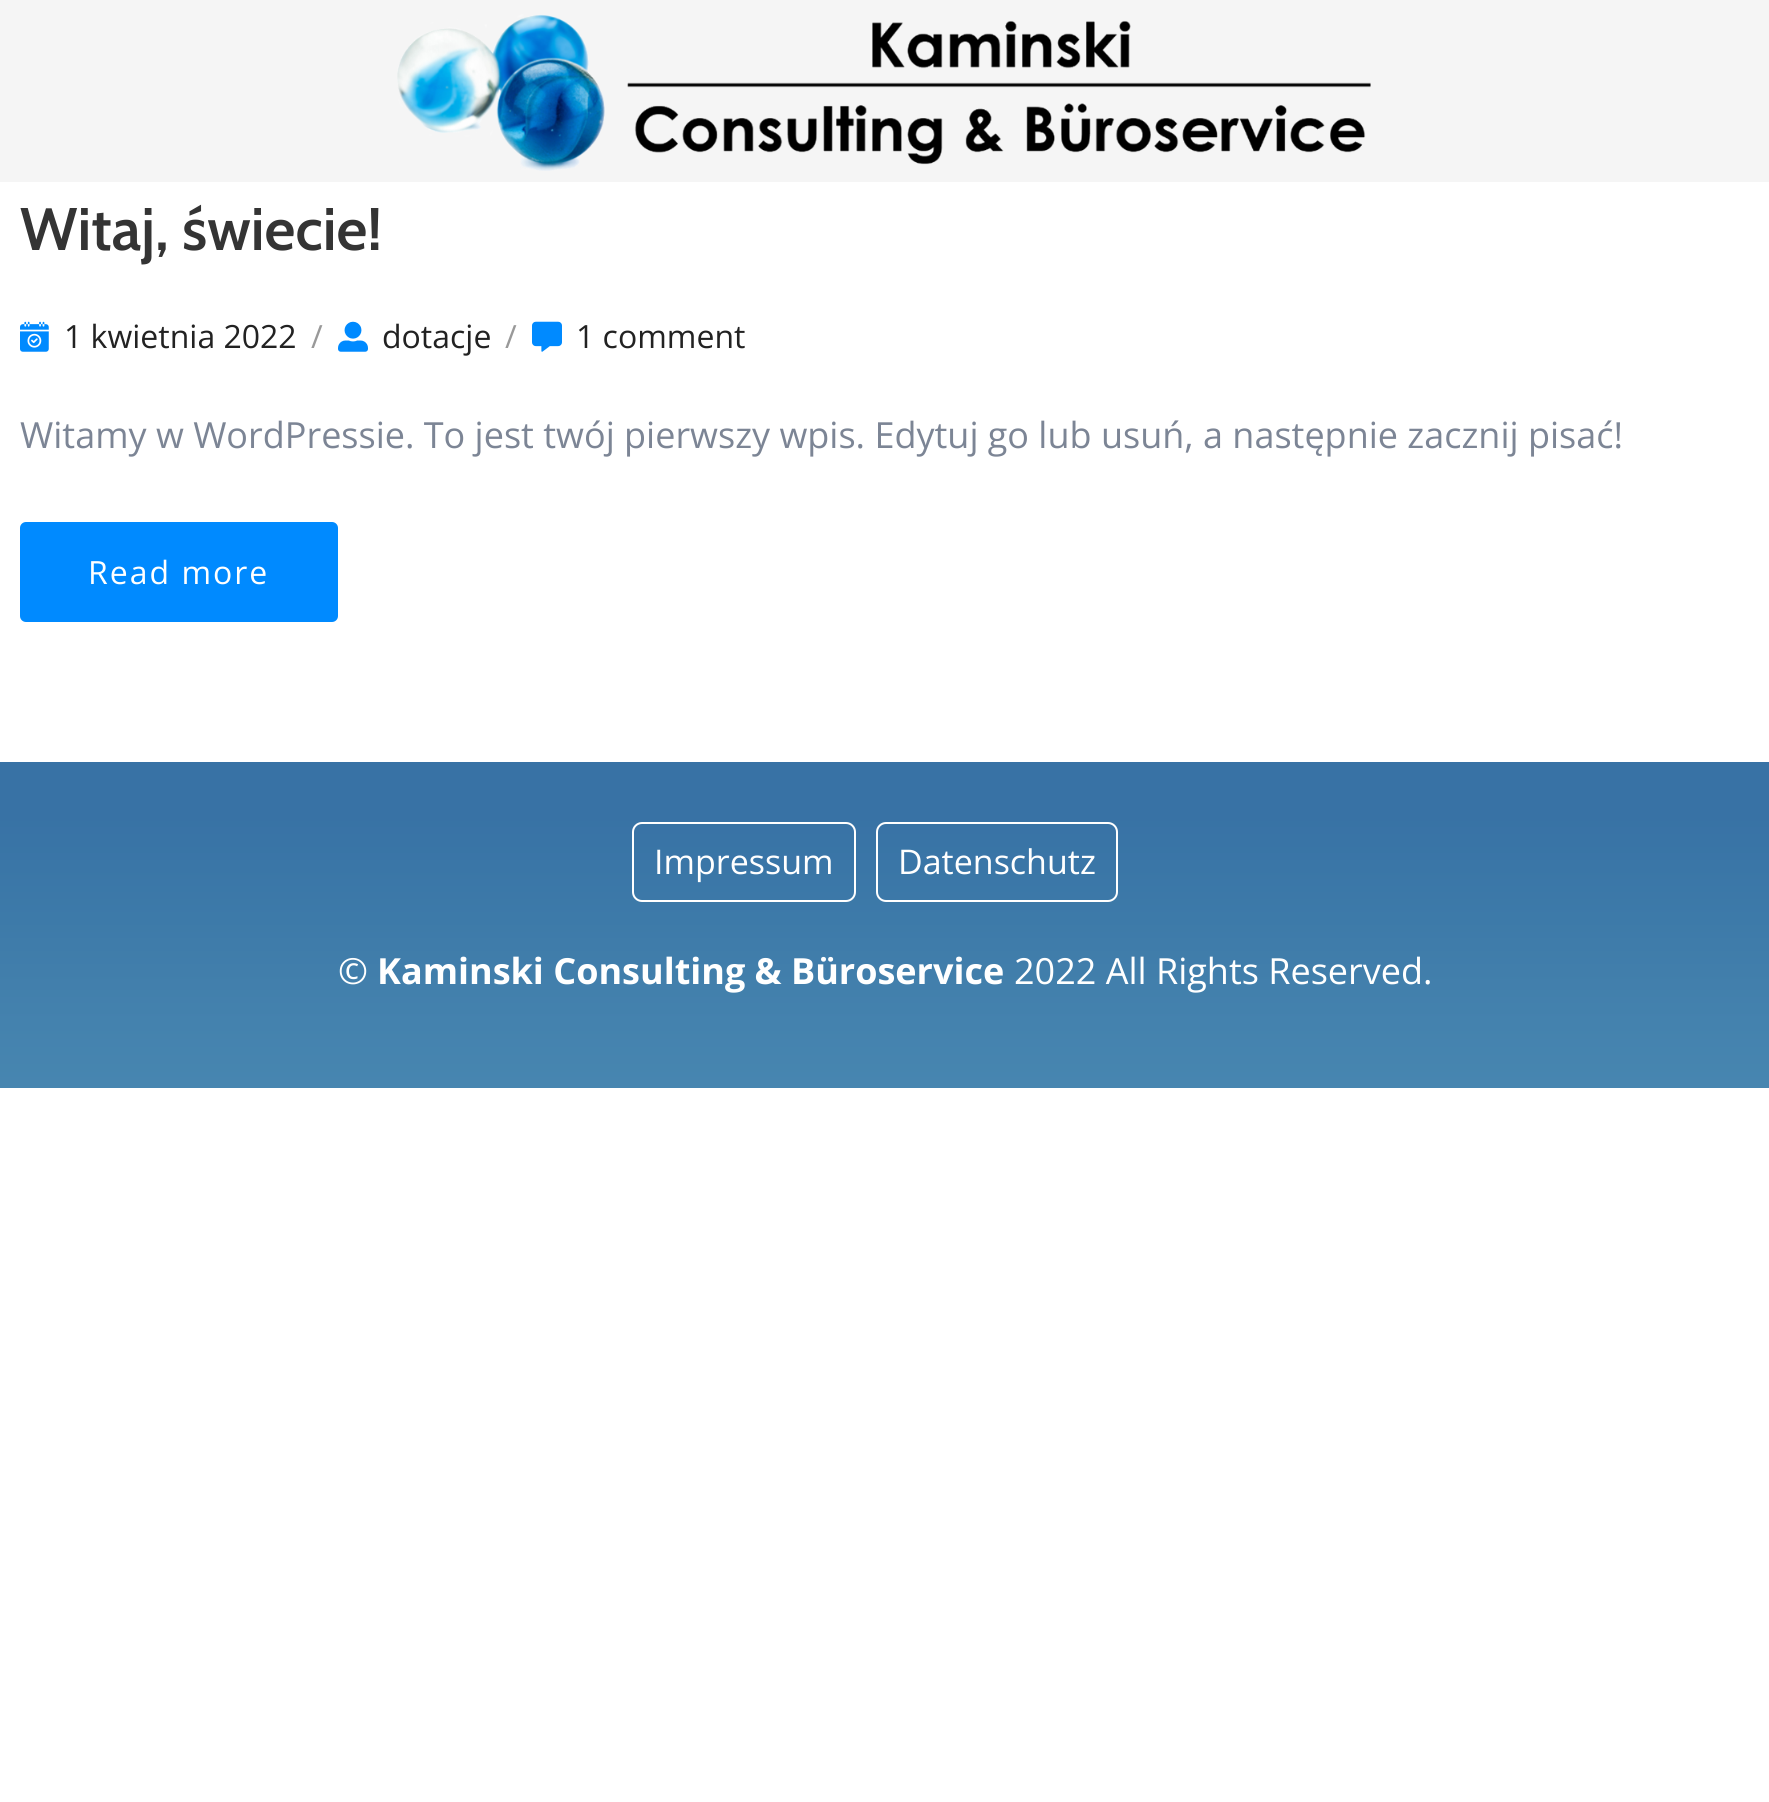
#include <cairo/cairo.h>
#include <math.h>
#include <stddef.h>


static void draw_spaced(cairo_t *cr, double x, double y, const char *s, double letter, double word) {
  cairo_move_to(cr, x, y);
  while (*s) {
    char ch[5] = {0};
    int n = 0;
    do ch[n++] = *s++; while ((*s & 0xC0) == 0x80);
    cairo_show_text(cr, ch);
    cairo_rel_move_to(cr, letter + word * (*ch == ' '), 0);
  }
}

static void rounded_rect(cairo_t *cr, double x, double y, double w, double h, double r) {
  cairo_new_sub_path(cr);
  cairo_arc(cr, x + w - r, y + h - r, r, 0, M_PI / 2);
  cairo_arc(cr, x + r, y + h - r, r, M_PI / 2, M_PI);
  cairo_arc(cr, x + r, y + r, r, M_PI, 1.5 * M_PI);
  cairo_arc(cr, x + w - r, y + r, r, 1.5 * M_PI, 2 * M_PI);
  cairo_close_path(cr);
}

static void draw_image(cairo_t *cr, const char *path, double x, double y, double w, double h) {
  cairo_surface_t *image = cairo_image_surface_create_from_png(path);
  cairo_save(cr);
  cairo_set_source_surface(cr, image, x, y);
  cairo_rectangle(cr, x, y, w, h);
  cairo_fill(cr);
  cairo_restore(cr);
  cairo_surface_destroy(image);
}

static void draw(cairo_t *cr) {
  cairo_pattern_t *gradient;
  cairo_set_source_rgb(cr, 1, 1, 1);
  cairo_paint(cr);
  cairo_set_source_rgb(cr, 245 / 255.0, 245 / 255.0, 245 / 255.0);
  cairo_rectangle(cr, 0, 0, 1769, 182);
  cairo_fill(cr);
  draw_image(cr, "images/1.png", 397, 14, 974, 157);
  draw_image(cr, "images/2.png", 20, 321, 29, 31);
  draw_image(cr, "images/3.png", 338, 321, 30, 31);
  draw_image(cr, "images/4.png", 532, 321, 30, 31);
  cairo_set_source_rgb(cr, 0, 138 / 255.0, 1);
  rounded_rect(cr, 20, 522, 318, 100, 6);
  cairo_fill(cr);
  gradient = cairo_pattern_create_linear(885, 762, 885, 1088);
  cairo_pattern_add_color_stop_rgba(gradient, 0.16, 56 / 255.0, 114 / 255.0, 165 / 255.0, 1);
  cairo_pattern_add_color_stop_rgba(gradient, 0.32, 58 / 255.0, 118 / 255.0, 167 / 255.0, 1);
  cairo_pattern_add_color_stop_rgba(gradient, 0.48, 61 / 255.0, 122 / 255.0, 169 / 255.0, 1);
  cairo_pattern_add_color_stop_rgba(gradient, 0.64, 65 / 255.0, 126 / 255.0, 171 / 255.0, 1);
  cairo_pattern_add_color_stop_rgba(gradient, 0.8, 68 / 255.0, 130 / 255.0, 174 / 255.0, 1);
  cairo_pattern_add_color_stop_rgba(gradient, 1, 71 / 255.0, 134 / 255.0, 176 / 255.0, 1);
  cairo_set_source(cr, gradient);
  cairo_pattern_destroy(gradient);
  cairo_rectangle(cr, 0, 762, 1769, 326);
  cairo_fill(cr);
  rounded_rect(cr, 633, 823, 222, 78, 9);
  cairo_set_source_rgb(cr, 1, 1, 1);
  cairo_stroke(cr);
  rounded_rect(cr, 877, 823, 240, 78, 9);
  cairo_stroke(cr);
  cairo_select_font_face(cr, "Cabin SemiBold", CAIRO_FONT_SLANT_NORMAL, CAIRO_FONT_WEIGHT_NORMAL);
  cairo_set_font_size(cr, 60);
  cairo_set_source_rgb(cr, 52 / 255.0, 52 / 255.0, 52 / 255.0);
  cairo_move_to(cr, 20, 250);
  cairo_show_text(cr, "Witaj, świecie!");
  cairo_select_font_face(cr, "Open Sans", CAIRO_FONT_SLANT_NORMAL, CAIRO_FONT_WEIGHT_NORMAL);
  cairo_set_font_size(cr, 32);
  cairo_set_source_rgb(cr, 34 / 255.0, 34 / 255.0, 34 / 255.0);
  cairo_move_to(cr, 64, 348);
  cairo_show_text(cr, "1 kwietnia 2022");
  cairo_set_source_rgb(cr, 153 / 255.0, 153 / 255.0, 153 / 255.0);
  cairo_move_to(cr, 311, 348);
  cairo_show_text(cr, "/");
  cairo_set_source_rgb(cr, 34 / 255.0, 34 / 255.0, 34 / 255.0);
  cairo_move_to(cr, 382, 348);
  cairo_show_text(cr, "dotacje");
  cairo_set_source_rgb(cr, 153 / 255.0, 153 / 255.0, 153 / 255.0);
  cairo_move_to(cr, 505, 348);
  cairo_show_text(cr, "/");
  cairo_set_source_rgb(cr, 34 / 255.0, 34 / 255.0, 34 / 255.0);
  cairo_move_to(cr, 576, 348);
  cairo_show_text(cr, "1 comment");
  cairo_set_font_size(cr, 36);
  cairo_set_source_rgb(cr, 124 / 255.0, 133 / 255.0, 149 / 255.0);
  cairo_move_to(cr, 20, 448);
  cairo_show_text(cr, "Witamy w WordPressie. To jest twój pierwszy wpis. Edytuj go lub usuń, a następnie zacznij pisać!");
  cairo_set_font_size(cr, 32);
  cairo_set_source_rgb(cr, 1, 1, 1);
  draw_spaced(cr, 88, 584, "Read more", 2, 0);
  cairo_set_font_size(cr, 34);
  cairo_move_to(cr, 654, 874);
  cairo_show_text(cr, "Impressum");
  cairo_move_to(cr, 898, 874);
  cairo_show_text(cr, "Datenschutz");
  cairo_set_font_size(cr, 36);
  cairo_move_to(cr, 338, 984);
  cairo_show_text(cr, "©");
  cairo_select_font_face(cr, "Open Sans", CAIRO_FONT_SLANT_NORMAL, CAIRO_FONT_WEIGHT_BOLD);
  cairo_move_to(cr, 377, 984);
  cairo_show_text(cr, "Kaminski Consulting & Büroservice");
  cairo_select_font_face(cr, "Open Sans", CAIRO_FONT_SLANT_NORMAL, CAIRO_FONT_WEIGHT_NORMAL);
  cairo_move_to(cr, 1014, 984);
  cairo_show_text(cr, "2022 All Rights Reserved.");
}

int main(void) {
  cairo_surface_t *surface = cairo_image_surface_create(CAIRO_FORMAT_RGB24, 1769, 1802);
  cairo_t *cr = cairo_create(surface);
  cairo_font_options_t *options = cairo_font_options_create();
  cairo_font_options_set_hint_metrics(options, CAIRO_HINT_METRICS_OFF);
  cairo_font_options_set_hint_style(options, CAIRO_HINT_STYLE_NONE);
  cairo_set_font_options(cr, options);
  cairo_set_miter_limit(cr, 4);
  draw(cr);
  cairo_surface_write_to_png(surface, "out.png");
  cairo_font_options_destroy(options);
  cairo_destroy(cr);
  cairo_surface_destroy(surface);
  return 0;
}
